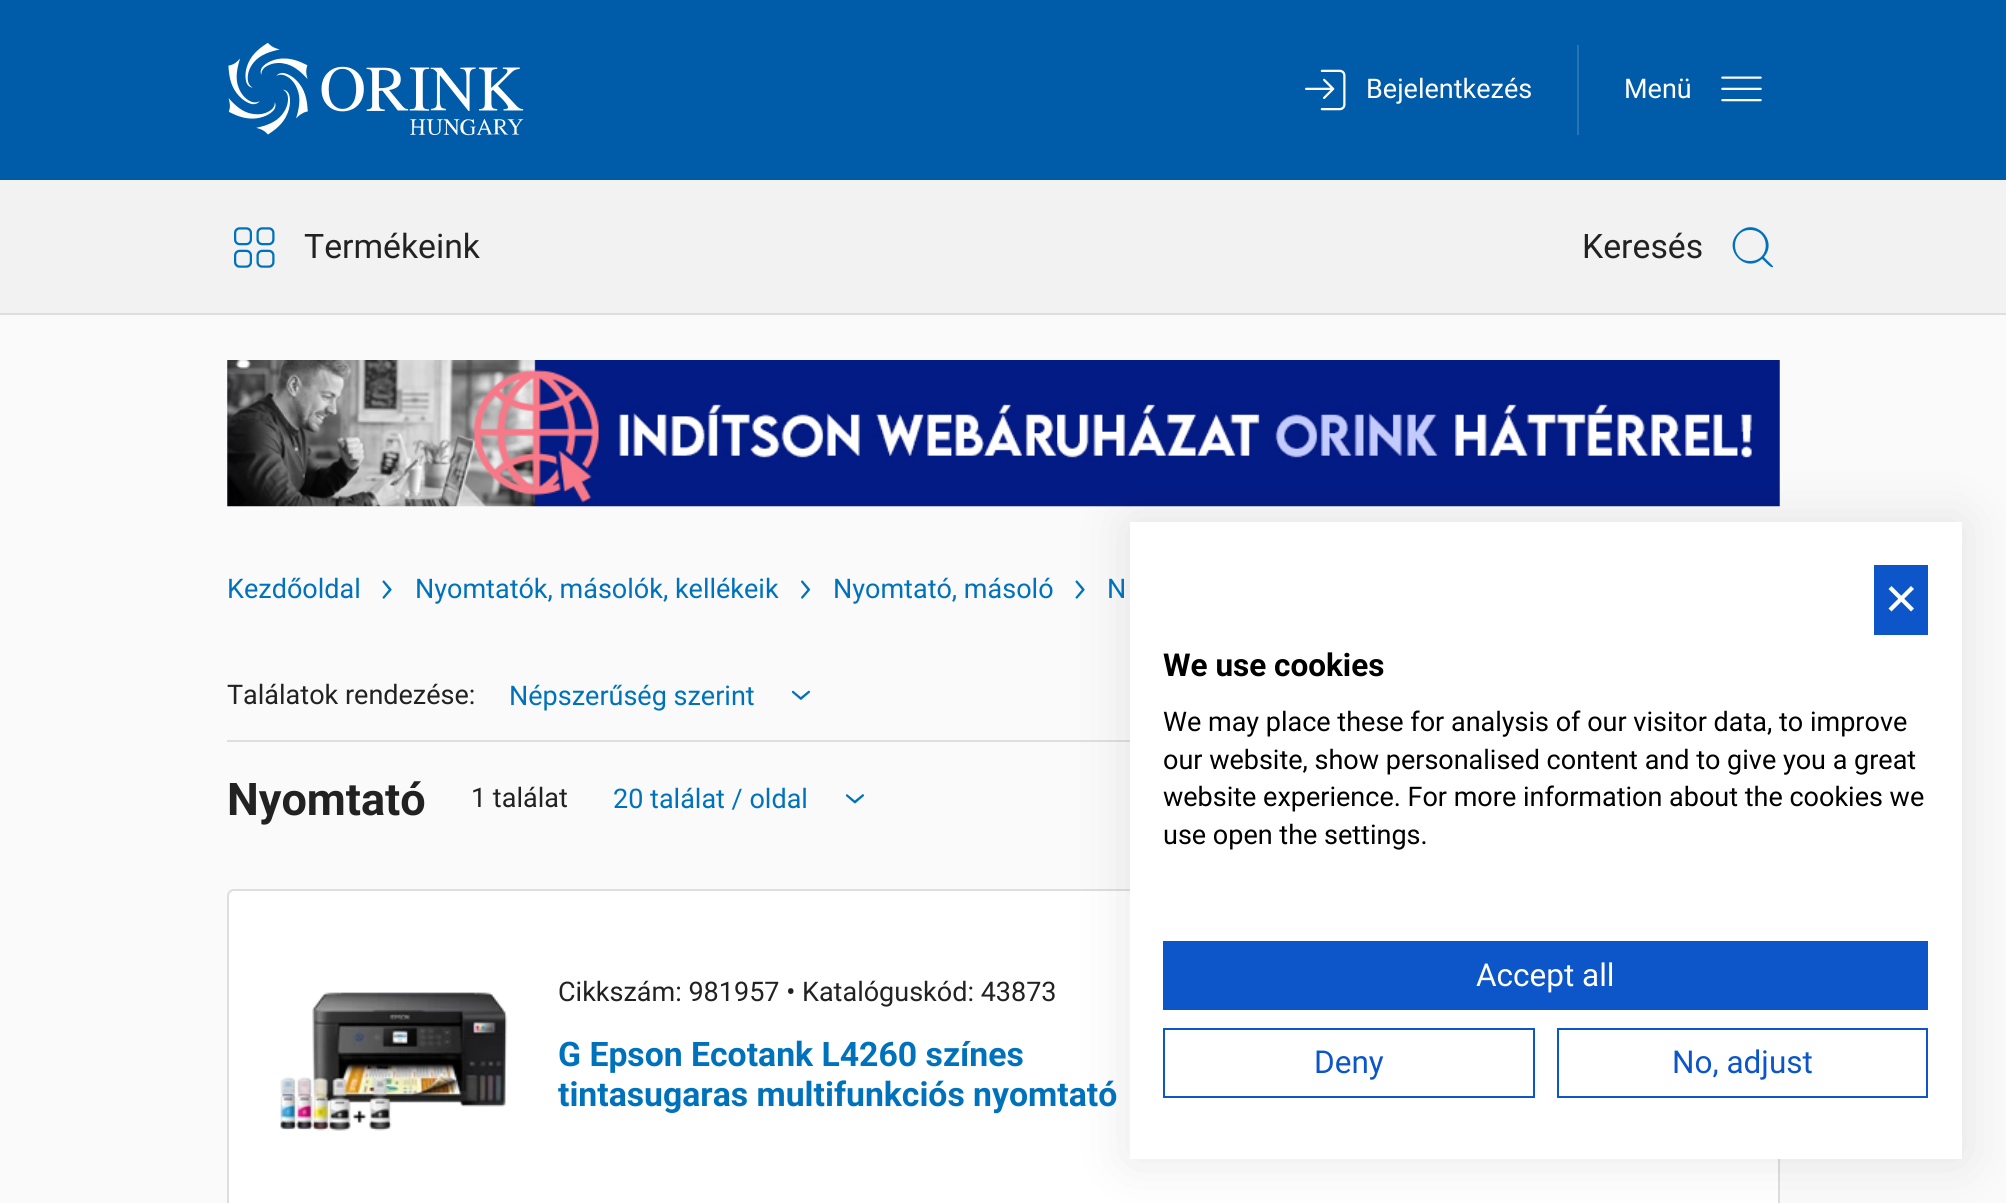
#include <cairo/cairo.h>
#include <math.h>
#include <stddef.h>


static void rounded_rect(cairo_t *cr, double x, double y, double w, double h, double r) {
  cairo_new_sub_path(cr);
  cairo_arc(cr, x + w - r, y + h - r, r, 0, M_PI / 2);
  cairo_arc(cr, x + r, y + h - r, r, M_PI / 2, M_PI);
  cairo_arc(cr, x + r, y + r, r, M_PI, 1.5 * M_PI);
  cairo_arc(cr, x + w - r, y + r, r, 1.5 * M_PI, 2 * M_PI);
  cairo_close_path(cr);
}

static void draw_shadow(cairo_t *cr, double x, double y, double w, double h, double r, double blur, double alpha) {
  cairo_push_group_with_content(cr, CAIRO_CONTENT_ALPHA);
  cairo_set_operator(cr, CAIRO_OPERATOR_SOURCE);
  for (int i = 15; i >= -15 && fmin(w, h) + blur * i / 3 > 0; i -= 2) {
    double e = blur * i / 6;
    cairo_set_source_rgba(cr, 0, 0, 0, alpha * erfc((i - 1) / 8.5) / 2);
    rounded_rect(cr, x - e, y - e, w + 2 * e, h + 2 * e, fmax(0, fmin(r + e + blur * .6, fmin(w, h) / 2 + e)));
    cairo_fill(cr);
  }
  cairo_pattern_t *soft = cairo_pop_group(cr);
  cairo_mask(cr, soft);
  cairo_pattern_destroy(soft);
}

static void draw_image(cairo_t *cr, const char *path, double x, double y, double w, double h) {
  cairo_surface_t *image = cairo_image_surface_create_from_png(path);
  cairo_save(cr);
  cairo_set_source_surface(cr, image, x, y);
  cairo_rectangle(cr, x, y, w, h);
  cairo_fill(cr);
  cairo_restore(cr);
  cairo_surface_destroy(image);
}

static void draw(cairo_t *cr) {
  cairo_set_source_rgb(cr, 250 / 255.0, 250 / 255.0, 250 / 255.0);
  cairo_paint(cr);
  cairo_set_source_rgb(cr, 0, 92 / 255.0, 168 / 255.0);
  cairo_rectangle(cr, 0, 0, 2006, 180);
  cairo_fill(cr);
  draw_image(cr, "images/1.png", 228, 43, 296, 93);
  draw_image(cr, "images/2.png", 1305, 69, 41, 42);
  cairo_set_source_rgb(cr, 38 / 255.0, 116 / 255.0, 181 / 255.0);
  cairo_rectangle(cr, 1577, 45, 2, 90);
  cairo_fill(cr);
  draw_image(cr, "images/3.png", 1721, 76, 41, 26);
  cairo_set_source_rgb(cr, 242 / 255.0, 242 / 255.0, 242 / 255.0);
  cairo_rectangle(cr, 0, 180, 2006, 133);
  cairo_fill(cr);
  cairo_set_source_rgb(cr, 222 / 255.0, 222 / 255.0, 222 / 255.0);
  cairo_rectangle(cr, 0, 313, 2006, 2);
  cairo_fill(cr);
  draw_image(cr, "images/4.png", 234, 227, 41, 41);
  cairo_set_source_rgb(cr, 0, 114 / 255.0, 188 / 255.0);
  cairo_new_path(cr);
  cairo_move_to(cr, 1764, 257);
  cairo_curve_to(cr, 1765, 259, 1774, 266, 1773, 267);
  cairo_curve_to(cr, 1771, 269, 1764, 260, 1762, 259);
  cairo_curve_to(cr, 1745, 274, 1722, 249, 1738, 233);
  cairo_curve_to(cr, 1754, 216, 1779, 240, 1764, 257);
  cairo_close_path(cr);
  cairo_move_to(cr, 1750, 261);
  cairo_curve_to(cr, 1771, 261, 1771, 230, 1750, 230);
  cairo_curve_to(cr, 1730, 230, 1730, 261, 1750, 261);
  cairo_close_path(cr);
  cairo_fill(cr);
  draw_image(cr, "images/5.png", 227, 360, 1553, 147);
  cairo_set_source_rgb(cr, 222 / 255.0, 222 / 255.0, 222 / 255.0);
  cairo_rectangle(cr, 227, 740, 903, 2);
  cairo_fill(cr);
  draw_image(cr, "images/6.png", 382, 580, 10, 19);
  draw_image(cr, "images/7.png", 801, 580, 10, 19);
  draw_image(cr, "images/6.png", 1075, 580, 10, 19);
  draw_image(cr, "images/8.png", 791, 690, 20, 10);
  draw_image(cr, "images/9.png", 845, 794, 20, 10);
  cairo_set_source_rgb(cr, 1, 1, 1);
  rounded_rect(cr, 228, 890, 1551, 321, 6);
  cairo_fill_preserve(cr);
  cairo_set_source_rgb(cr, 222 / 255.0, 222 / 255.0, 222 / 255.0);
  cairo_stroke(cr);
  draw_image(cr, "images/10.png", 280, 992, 228, 139);
  cairo_set_source_rgb(cr, 0, 0, 0);
  draw_shadow(cr, 1130, 522, 832, 637, 0, 27, 0.1);
  cairo_set_source_rgb(cr, 1, 1, 1);
  cairo_rectangle(cr, 1130, 522, 832, 637);
  cairo_fill(cr);
  cairo_set_source_rgb(cr, 13 / 255.0, 86 / 255.0, 201 / 255.0);
  cairo_rectangle(cr, 1874, 565, 54, 70);
  cairo_fill(cr);
  cairo_set_source_rgb(cr, 1, 1, 1);
  cairo_new_path(cr);
  cairo_move_to(cr, 1911, 586);
  cairo_line_to(cr, 1914, 589);
  cairo_line_to(cr, 1891.5, 611.5);
  cairo_line_to(cr, 1888.5, 608.5);
  cairo_close_path(cr);
  cairo_fill(cr);
  cairo_new_path(cr);
  cairo_move_to(cr, 1888.5, 589);
  cairo_line_to(cr, 1891.5, 586);
  cairo_line_to(cr, 1914, 608.5);
  cairo_line_to(cr, 1911, 611.5);
  cairo_close_path(cr);
  cairo_fill(cr);
  cairo_set_source_rgb(cr, 13 / 255.0, 86 / 255.0, 201 / 255.0);
  cairo_rectangle(cr, 1163, 941, 765, 69);
  cairo_fill(cr);
  cairo_rectangle(cr, 1164, 1029, 370, 68);
  cairo_stroke(cr);
  cairo_rectangle(cr, 1558, 1029, 369, 68);
  cairo_stroke(cr);
  cairo_select_font_face(cr, "Roboto", CAIRO_FONT_SLANT_NORMAL, CAIRO_FONT_WEIGHT_NORMAL);
  cairo_set_font_size(cr, 27);
  cairo_set_source_rgb(cr, 1, 1, 1);
  cairo_move_to(cr, 1366, 98);
  cairo_show_text(cr, "Bejelentkezés");
  cairo_move_to(cr, 1624, 98);
  cairo_show_text(cr, "Menü");
  cairo_set_font_size(cr, 33.75);
  cairo_set_source_rgb(cr, 34 / 255.0, 34 / 255.0, 34 / 255.0);
  cairo_move_to(cr, 304, 258);
  cairo_show_text(cr, "Termékeink");
  cairo_move_to(cr, 1582, 258);
  cairo_show_text(cr, "Keresés");
  cairo_set_font_size(cr, 27);
  cairo_set_source_rgb(cr, 0, 114 / 255.0, 188 / 255.0);
  cairo_move_to(cr, 227, 598);
  cairo_show_text(cr, "Kezdőoldal");
  cairo_move_to(cr, 415, 598);
  cairo_show_text(cr, "Nyomtatók, másolók, kellékeik");
  cairo_move_to(cr, 833, 598);
  cairo_show_text(cr, "Nyomtató, másoló");
  cairo_move_to(cr, 1107, 598);
  cairo_show_text(cr, "N");
  cairo_set_source_rgb(cr, 34 / 255.0, 34 / 255.0, 34 / 255.0);
  cairo_move_to(cr, 227, 704);
  cairo_show_text(cr, "Találatok rendezése:");
  cairo_set_source_rgb(cr, 0, 114 / 255.0, 188 / 255.0);
  cairo_move_to(cr, 509, 705);
  cairo_show_text(cr, "Népszerűség szerint");
  cairo_select_font_face(cr, "Roboto", CAIRO_FONT_SLANT_NORMAL, CAIRO_FONT_WEIGHT_BOLD);
  cairo_set_font_size(cr, 45);
  cairo_set_source_rgb(cr, 34 / 255.0, 34 / 255.0, 34 / 255.0);
  cairo_move_to(cr, 227, 815);
  cairo_show_text(cr, "Nyomtató");
  cairo_select_font_face(cr, "Roboto", CAIRO_FONT_SLANT_NORMAL, CAIRO_FONT_WEIGHT_NORMAL);
  cairo_set_font_size(cr, 27);
  cairo_move_to(cr, 471, 807);
  cairo_show_text(cr, "1 találat");
  cairo_set_source_rgb(cr, 0, 114 / 255.0, 188 / 255.0);
  cairo_move_to(cr, 613, 808);
  cairo_show_text(cr, "20 találat / oldal");
  cairo_set_source_rgb(cr, 34 / 255.0, 34 / 255.0, 34 / 255.0);
  cairo_move_to(cr, 558, 1001);
  cairo_show_text(cr, "Cikkszám: 981957 • Katalóguskód: 43873");
  cairo_select_font_face(cr, "Roboto", CAIRO_FONT_SLANT_NORMAL, CAIRO_FONT_WEIGHT_BOLD);
  cairo_set_font_size(cr, 33.75);
  cairo_set_source_rgb(cr, 0, 114 / 255.0, 188 / 255.0);
  cairo_move_to(cr, 558, 1066);
  cairo_show_text(cr, "G Epson Ecotank L4260 színes");
  cairo_move_to(cr, 558, 1106);
  cairo_show_text(cr, "tintasugaras multifunkciós nyomtató");
  cairo_set_font_size(cr, 31.5);
  cairo_set_source_rgb(cr, 0, 0, 0);
  cairo_move_to(cr, 1163, 676);
  cairo_show_text(cr, "We use cookies");
  cairo_select_font_face(cr, "Roboto", CAIRO_FONT_SLANT_NORMAL, CAIRO_FONT_WEIGHT_NORMAL);
  cairo_set_font_size(cr, 27);
  cairo_move_to(cr, 1163, 731);
  cairo_show_text(cr, "We may place these for analysis of our visitor data, to improve");
  cairo_move_to(cr, 1163, 769);
  cairo_show_text(cr, "our website, show personalised content and to give you a great");
  cairo_move_to(cr, 1163, 806);
  cairo_show_text(cr, "website experience. For more information about the cookies we");
  cairo_move_to(cr, 1163, 844);
  cairo_show_text(cr, "use open the settings.");
  cairo_set_font_size(cr, 31.5);
  cairo_set_source_rgb(cr, 1, 1, 1);
  cairo_move_to(cr, 1476, 986);
  cairo_show_text(cr, "Accept all");
  cairo_set_source_rgb(cr, 13 / 255.0, 86 / 255.0, 201 / 255.0);
  cairo_move_to(cr, 1314, 1073);
  cairo_show_text(cr, "Deny");
  cairo_move_to(cr, 1672, 1073);
  cairo_show_text(cr, "No, adjust");
}

int main(void) {
  cairo_surface_t *surface = cairo_image_surface_create(CAIRO_FORMAT_RGB24, 2006, 1203);
  cairo_t *cr = cairo_create(surface);
  cairo_font_options_t *options = cairo_font_options_create();
  cairo_font_options_set_hint_metrics(options, CAIRO_HINT_METRICS_OFF);
  cairo_font_options_set_hint_style(options, CAIRO_HINT_STYLE_NONE);
  cairo_set_font_options(cr, options);
  cairo_set_miter_limit(cr, 4);
  draw(cr);
  cairo_surface_write_to_png(surface, "out.png");
  cairo_font_options_destroy(options);
  cairo_destroy(cr);
  cairo_surface_destroy(surface);
  return 0;
}
